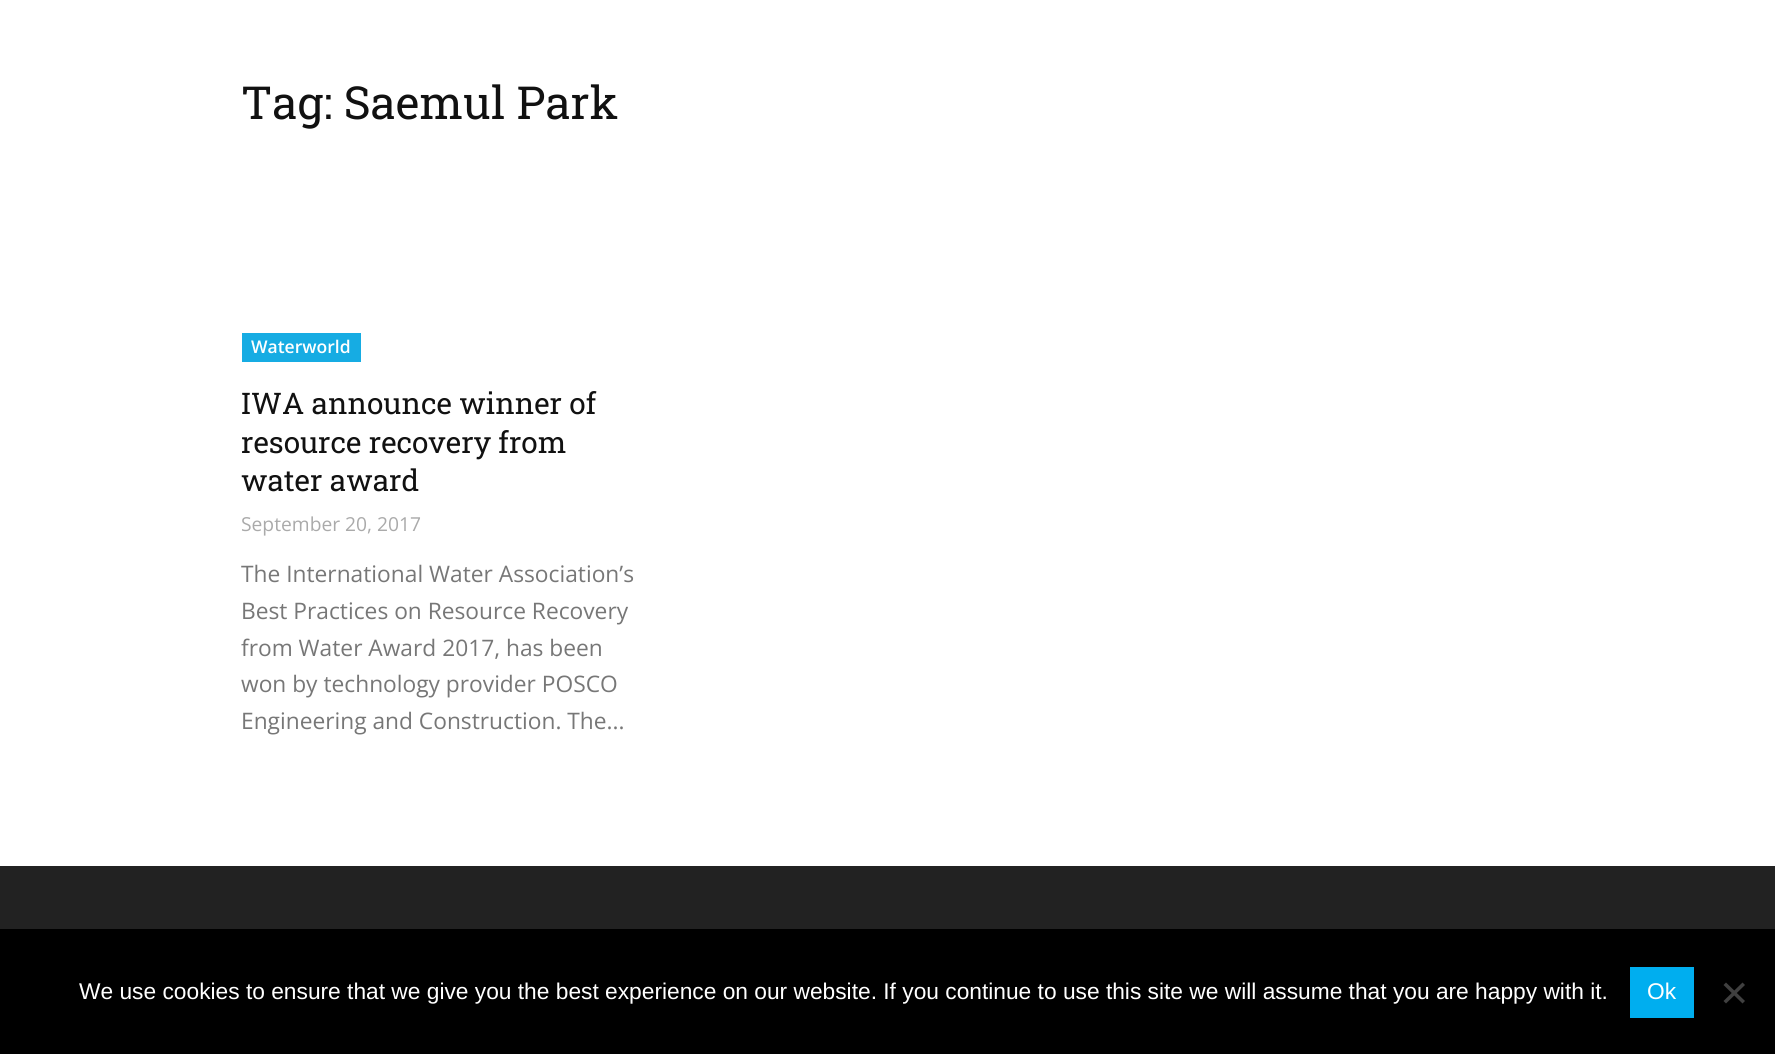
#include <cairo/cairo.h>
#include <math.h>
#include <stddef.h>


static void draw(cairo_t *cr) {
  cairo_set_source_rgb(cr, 1, 1, 1);
  cairo_paint(cr);
  cairo_set_source_rgb(cr, 22 / 255.0, 172 / 255.0, 227 / 255.0);
  cairo_rectangle(cr, 242, 333, 119, 29);
  cairo_fill(cr);
  cairo_set_source_rgb(cr, 34 / 255.0, 34 / 255.0, 34 / 255.0);
  cairo_rectangle(cr, 0, 866, 1775, 63);
  cairo_fill(cr);
  cairo_set_source_rgb(cr, 0, 0, 0);
  cairo_rectangle(cr, 0, 929, 1775, 125);
  cairo_fill(cr);
  cairo_set_source_rgb(cr, 0, 174 / 255.0, 239 / 255.0);
  cairo_rectangle(cr, 1630, 967, 64, 51);
  cairo_fill(cr);
  cairo_set_source_rgb(cr, 64 / 255.0, 64 / 255.0, 64 / 255.0);
  cairo_new_path(cr);
  cairo_move_to(cr, 1742.5, 982.5);
  cairo_line_to(cr, 1745, 985);
  cairo_line_to(cr, 1726, 1003.5);
  cairo_line_to(cr, 1723.5, 1001);
  cairo_close_path(cr);
  cairo_fill(cr);
  cairo_new_path(cr);
  cairo_move_to(cr, 1723.5, 985);
  cairo_line_to(cr, 1726, 982.5);
  cairo_line_to(cr, 1745, 1001);
  cairo_line_to(cr, 1742.5, 1003.5);
  cairo_close_path(cr);
  cairo_fill(cr);
  cairo_select_font_face(cr, "Roboto Slab", CAIRO_FONT_SLANT_NORMAL, CAIRO_FONT_WEIGHT_NORMAL);
  cairo_set_font_size(cr, 45.5);
  cairo_set_source_rgb(cr, 17 / 255.0, 17 / 255.0, 17 / 255.0);
  cairo_move_to(cr, 241, 119);
  cairo_show_text(cr, "Tag: Saemul Park");
  cairo_select_font_face(cr, "Open Sans SemiBold", CAIRO_FONT_SLANT_NORMAL, CAIRO_FONT_WEIGHT_NORMAL);
  cairo_set_font_size(cr, 17.5);
  cairo_set_source_rgb(cr, 1, 1, 1);
  cairo_move_to(cr, 251, 353);
  cairo_show_text(cr, "Waterworld");
  cairo_select_font_face(cr, "Roboto Slab", CAIRO_FONT_SLANT_NORMAL, CAIRO_FONT_WEIGHT_NORMAL);
  cairo_set_font_size(cr, 29.75);
  cairo_set_source_rgb(cr, 17 / 255.0, 17 / 255.0, 17 / 255.0);
  cairo_move_to(cr, 241, 414);
  cairo_show_text(cr, "IWA announce winner of");
  cairo_move_to(cr, 241, 453);
  cairo_show_text(cr, "resource recovery from");
  cairo_move_to(cr, 241, 491);
  cairo_show_text(cr, "water award");
  cairo_select_font_face(cr, "Open Sans", CAIRO_FONT_SLANT_NORMAL, CAIRO_FONT_WEIGHT_NORMAL);
  cairo_set_font_size(cr, 19.25);
  cairo_set_source_rgb(cr, 170 / 255.0, 170 / 255.0, 170 / 255.0);
  cairo_move_to(cr, 241, 531);
  cairo_show_text(cr, "September 20, 2017");
  cairo_set_font_size(cr, 22.75);
  cairo_set_source_rgb(cr, 119 / 255.0, 119 / 255.0, 119 / 255.0);
  cairo_move_to(cr, 241, 582);
  cairo_show_text(cr, "The International Water Association’s");
  cairo_move_to(cr, 241, 619);
  cairo_show_text(cr, "Best Practices on Resource Recovery");
  cairo_move_to(cr, 241, 656);
  cairo_show_text(cr, "from Water Award 2017, has been");
  cairo_move_to(cr, 241, 692);
  cairo_show_text(cr, "won by technology provider POSCO");
  cairo_move_to(cr, 241, 729);
  cairo_show_text(cr, "Engineering and Construction. The...");
  cairo_select_font_face(cr, "Liberation Sans", CAIRO_FONT_SLANT_NORMAL, CAIRO_FONT_WEIGHT_NORMAL);
  cairo_set_source_rgb(cr, 1, 1, 1);
  cairo_move_to(cr, 79, 999);
  cairo_show_text(cr, "We use cookies to ensure that we give you the best experience on our website. If you continue to use this site we will assume that you are happy with it.");
  cairo_move_to(cr, 1647, 999);
  cairo_show_text(cr, "Ok");
}

int main(void) {
  cairo_surface_t *surface = cairo_image_surface_create(CAIRO_FORMAT_RGB24, 1775, 1054);
  cairo_t *cr = cairo_create(surface);
  cairo_font_options_t *options = cairo_font_options_create();
  cairo_font_options_set_hint_metrics(options, CAIRO_HINT_METRICS_OFF);
  cairo_font_options_set_hint_style(options, CAIRO_HINT_STYLE_NONE);
  cairo_set_font_options(cr, options);
  cairo_set_miter_limit(cr, 4);
  draw(cr);
  cairo_surface_write_to_png(surface, "out.png");
  cairo_font_options_destroy(options);
  cairo_destroy(cr);
  cairo_surface_destroy(surface);
  return 0;
}
